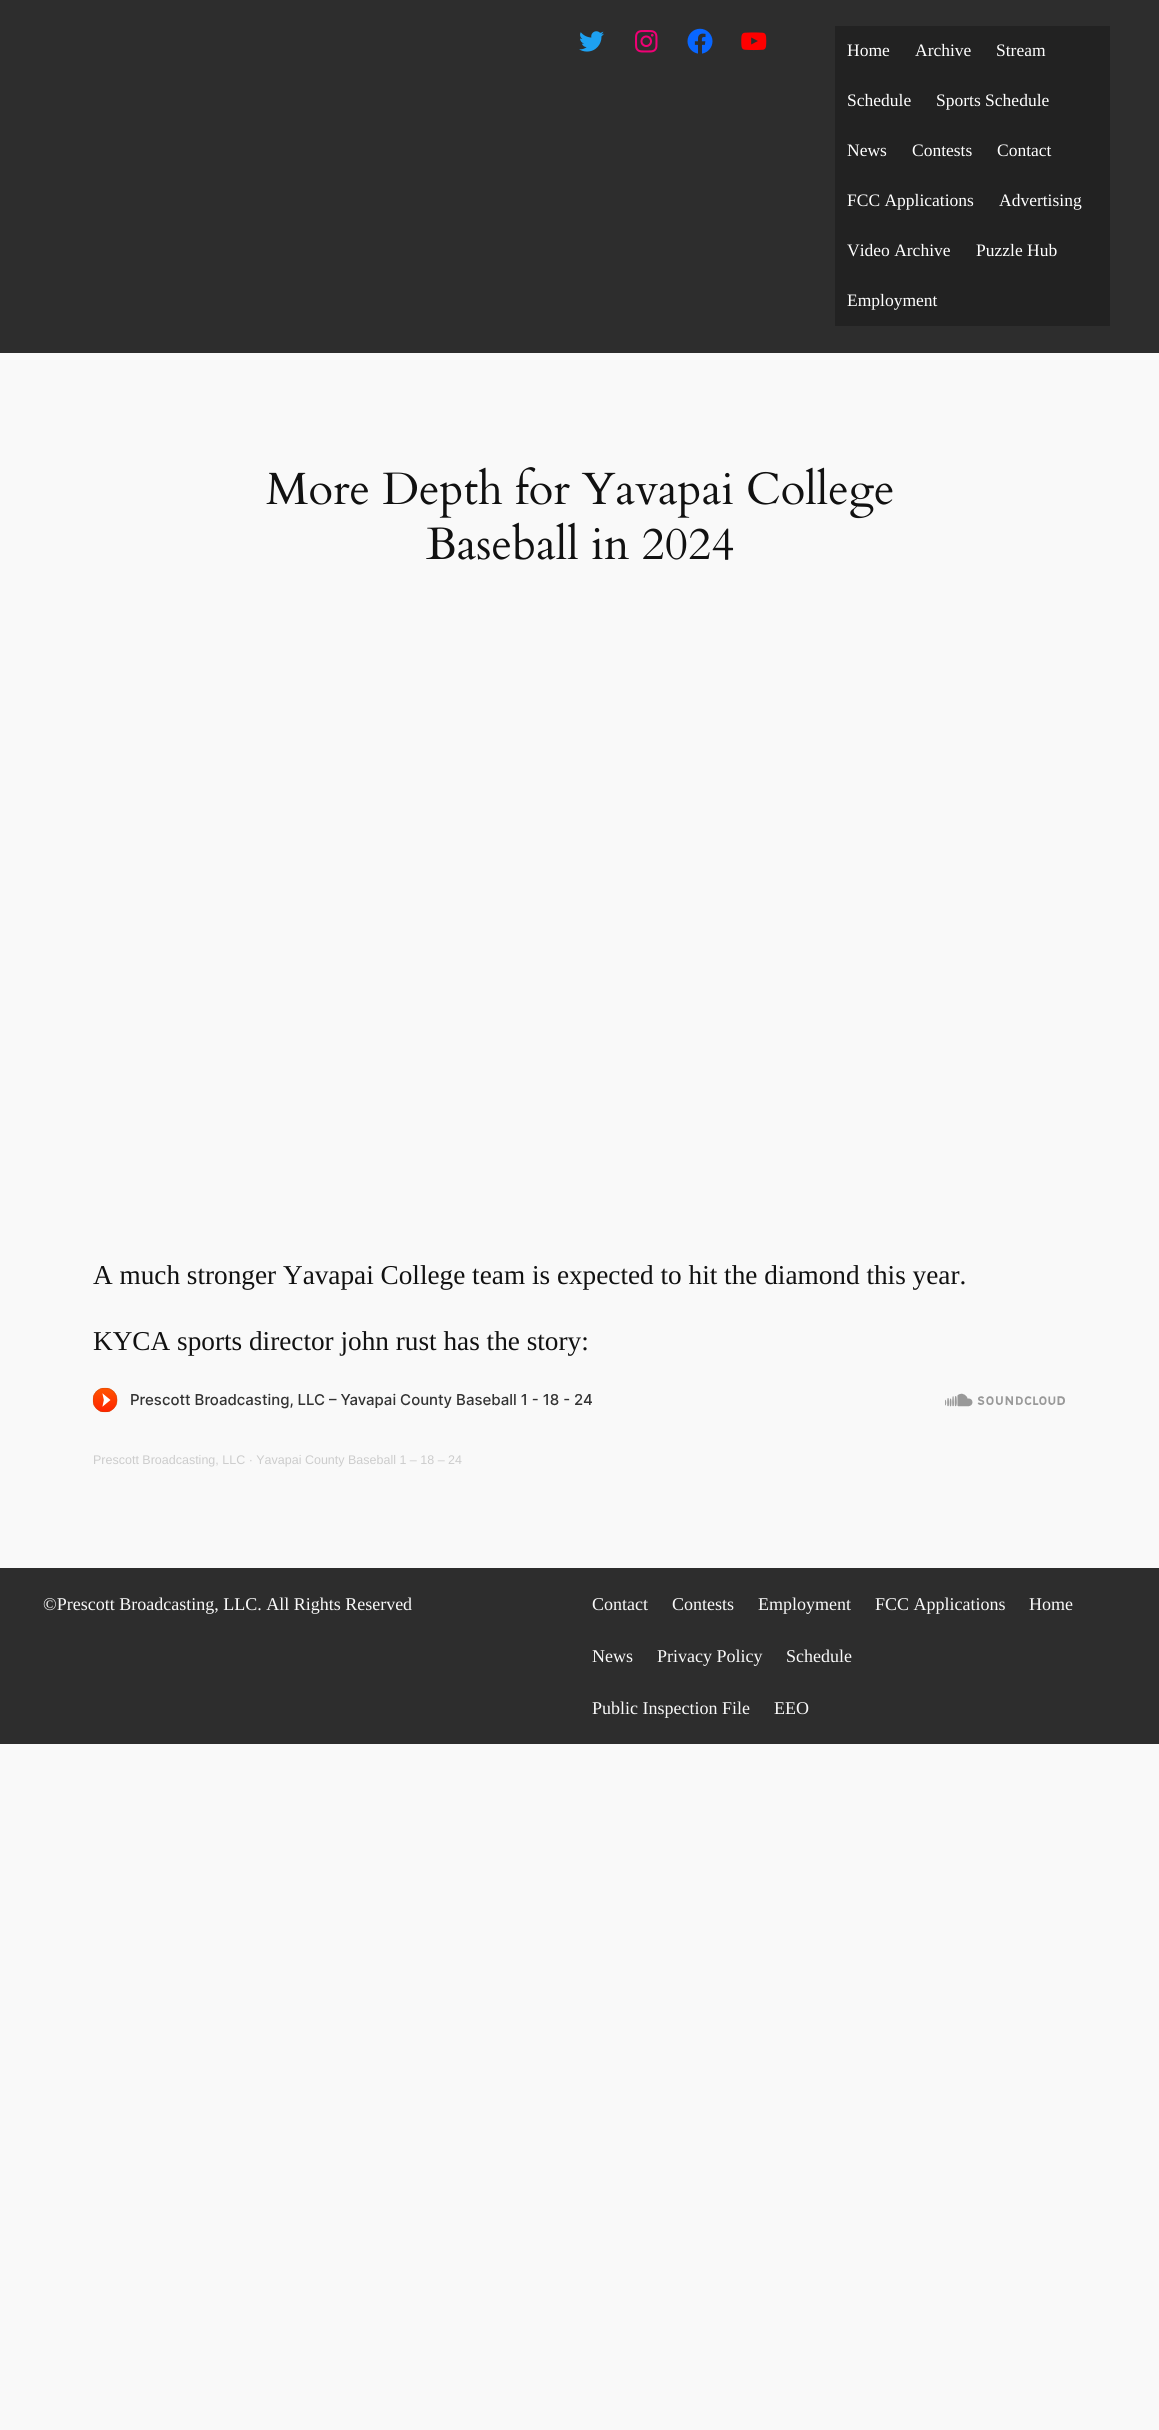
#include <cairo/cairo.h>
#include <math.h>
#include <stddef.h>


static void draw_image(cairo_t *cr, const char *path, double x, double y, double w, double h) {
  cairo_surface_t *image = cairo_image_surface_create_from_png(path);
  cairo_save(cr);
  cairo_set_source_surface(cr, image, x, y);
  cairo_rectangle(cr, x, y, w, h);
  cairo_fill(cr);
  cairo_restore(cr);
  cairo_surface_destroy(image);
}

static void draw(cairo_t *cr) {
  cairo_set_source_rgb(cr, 249 / 255.0, 249 / 255.0, 249 / 255.0);
  cairo_paint(cr);
  cairo_set_source_rgb(cr, 45 / 255.0, 45 / 255.0, 45 / 255.0);
  cairo_rectangle(cr, 0, 0, 1159, 353);
  cairo_fill(cr);
  draw_image(cr, "images/1.png", 579, 31, 25, 21);
  draw_image(cr, "images/2.png", 635, 30, 23, 23);
  draw_image(cr, "images/3.png", 687, 28, 26, 26);
  draw_image(cr, "images/4.png", 741, 32, 26, 19);
  cairo_set_source_rgb(cr, 34 / 255.0, 34 / 255.0, 34 / 255.0);
  cairo_rectangle(cr, 835, 26, 275, 300);
  cairo_fill(cr);
  draw_image(cr, "images/5.png", 92, 1387, 973, 26);
  cairo_set_source_rgb(cr, 45 / 255.0, 45 / 255.0, 45 / 255.0);
  cairo_rectangle(cr, 0, 1568, 1159, 176);
  cairo_fill(cr);
  cairo_select_font_face(cr, "Liberation Serif", CAIRO_FONT_SLANT_NORMAL, CAIRO_FONT_WEIGHT_NORMAL);
  cairo_set_font_size(cr, 17.5);
  cairo_set_source_rgb(cr, 1, 1, 1);
  cairo_move_to(cr, 847, 56);
  cairo_show_text(cr, "Home");
  cairo_move_to(cr, 915, 56);
  cairo_show_text(cr, "Archive");
  cairo_move_to(cr, 996, 56);
  cairo_show_text(cr, "Stream");
  cairo_move_to(cr, 847, 106);
  cairo_show_text(cr, "Schedule");
  cairo_move_to(cr, 936, 106);
  cairo_show_text(cr, "Sports Schedule");
  cairo_move_to(cr, 847, 156);
  cairo_show_text(cr, "News");
  cairo_move_to(cr, 912, 156);
  cairo_show_text(cr, "Contests");
  cairo_move_to(cr, 997, 156);
  cairo_show_text(cr, "Contact");
  cairo_move_to(cr, 847, 206);
  cairo_show_text(cr, "FCC Applications");
  cairo_move_to(cr, 999, 206);
  cairo_show_text(cr, "Advertising");
  cairo_move_to(cr, 847, 256);
  cairo_show_text(cr, "Video Archive");
  cairo_move_to(cr, 976, 256);
  cairo_show_text(cr, "Puzzle Hub");
  cairo_move_to(cr, 847, 306);
  cairo_show_text(cr, "Employment");
  cairo_select_font_face(cr, "Cardo", CAIRO_FONT_SLANT_NORMAL, CAIRO_FONT_WEIGHT_NORMAL);
  cairo_set_font_size(cr, 45.25);
  cairo_set_source_rgb(cr, 17 / 255.0, 17 / 255.0, 17 / 255.0);
  cairo_move_to(cr, 266, 504);
  cairo_show_text(cr, "More Depth for Yavapai College");
  cairo_move_to(cr, 426, 559);
  cairo_show_text(cr, "Baseball in 2024");
  cairo_select_font_face(cr, "Liberation Serif", CAIRO_FONT_SLANT_NORMAL, CAIRO_FONT_WEIGHT_NORMAL);
  cairo_set_font_size(cr, 27.25);
  cairo_move_to(cr, 93, 1284);
  cairo_show_text(cr, "A much stronger Yavapai College team is expected to hit the diamond this year.");
  cairo_move_to(cr, 93, 1350);
  cairo_show_text(cr, "KYCA sports director john rust has the story:");
  cairo_select_font_face(cr, "Liberation Sans", CAIRO_FONT_SLANT_NORMAL, CAIRO_FONT_WEIGHT_NORMAL);
  cairo_set_font_size(cr, 12.5);
  cairo_set_source_rgb(cr, 204 / 255.0, 204 / 255.0, 204 / 255.0);
  cairo_move_to(cr, 93, 1464);
  cairo_show_text(cr, "Prescott Broadcasting, LLC · Yavapai County Baseball 1 – 18 – 24");
  cairo_select_font_face(cr, "Liberation Serif", CAIRO_FONT_SLANT_NORMAL, CAIRO_FONT_WEIGHT_NORMAL);
  cairo_set_font_size(cr, 18);
  cairo_set_source_rgb(cr, 249 / 255.0, 249 / 255.0, 249 / 255.0);
  cairo_move_to(cr, 43, 1610);
  cairo_show_text(cr, "©Prescott Broadcasting, LLC. All Rights Reserved");
  cairo_move_to(cr, 592, 1610);
  cairo_show_text(cr, "Contact");
  cairo_move_to(cr, 672, 1610);
  cairo_show_text(cr, "Contests");
  cairo_move_to(cr, 758, 1610);
  cairo_show_text(cr, "Employment");
  cairo_move_to(cr, 875, 1610);
  cairo_show_text(cr, "FCC Applications");
  cairo_move_to(cr, 1029, 1610);
  cairo_show_text(cr, "Home");
  cairo_move_to(cr, 592, 1662);
  cairo_show_text(cr, "News");
  cairo_move_to(cr, 657, 1662);
  cairo_show_text(cr, "Privacy Policy");
  cairo_move_to(cr, 786, 1662);
  cairo_show_text(cr, "Schedule");
  cairo_move_to(cr, 592, 1714);
  cairo_show_text(cr, "Public Inspection File");
  cairo_move_to(cr, 774, 1714);
  cairo_show_text(cr, "EEO");
}

int main(void) {
  cairo_surface_t *surface = cairo_image_surface_create(CAIRO_FORMAT_RGB24, 1159, 2430);
  cairo_t *cr = cairo_create(surface);
  cairo_font_options_t *options = cairo_font_options_create();
  cairo_font_options_set_hint_metrics(options, CAIRO_HINT_METRICS_OFF);
  cairo_font_options_set_hint_style(options, CAIRO_HINT_STYLE_NONE);
  cairo_set_font_options(cr, options);
  cairo_set_miter_limit(cr, 4);
  draw(cr);
  cairo_surface_write_to_png(surface, "out.png");
  cairo_font_options_destroy(options);
  cairo_destroy(cr);
  cairo_surface_destroy(surface);
  return 0;
}
